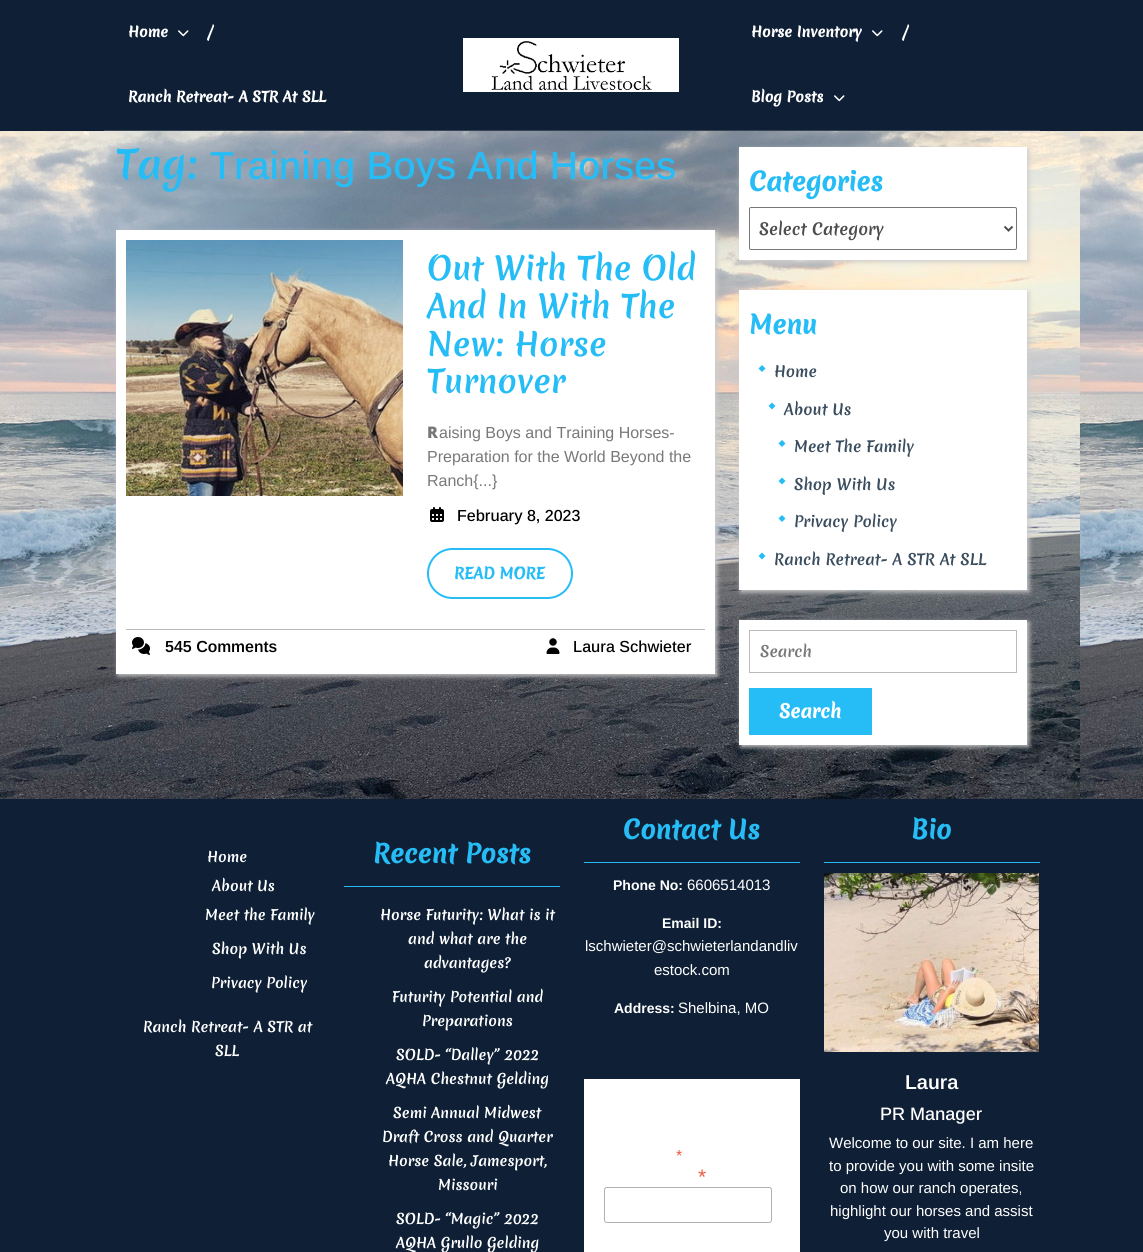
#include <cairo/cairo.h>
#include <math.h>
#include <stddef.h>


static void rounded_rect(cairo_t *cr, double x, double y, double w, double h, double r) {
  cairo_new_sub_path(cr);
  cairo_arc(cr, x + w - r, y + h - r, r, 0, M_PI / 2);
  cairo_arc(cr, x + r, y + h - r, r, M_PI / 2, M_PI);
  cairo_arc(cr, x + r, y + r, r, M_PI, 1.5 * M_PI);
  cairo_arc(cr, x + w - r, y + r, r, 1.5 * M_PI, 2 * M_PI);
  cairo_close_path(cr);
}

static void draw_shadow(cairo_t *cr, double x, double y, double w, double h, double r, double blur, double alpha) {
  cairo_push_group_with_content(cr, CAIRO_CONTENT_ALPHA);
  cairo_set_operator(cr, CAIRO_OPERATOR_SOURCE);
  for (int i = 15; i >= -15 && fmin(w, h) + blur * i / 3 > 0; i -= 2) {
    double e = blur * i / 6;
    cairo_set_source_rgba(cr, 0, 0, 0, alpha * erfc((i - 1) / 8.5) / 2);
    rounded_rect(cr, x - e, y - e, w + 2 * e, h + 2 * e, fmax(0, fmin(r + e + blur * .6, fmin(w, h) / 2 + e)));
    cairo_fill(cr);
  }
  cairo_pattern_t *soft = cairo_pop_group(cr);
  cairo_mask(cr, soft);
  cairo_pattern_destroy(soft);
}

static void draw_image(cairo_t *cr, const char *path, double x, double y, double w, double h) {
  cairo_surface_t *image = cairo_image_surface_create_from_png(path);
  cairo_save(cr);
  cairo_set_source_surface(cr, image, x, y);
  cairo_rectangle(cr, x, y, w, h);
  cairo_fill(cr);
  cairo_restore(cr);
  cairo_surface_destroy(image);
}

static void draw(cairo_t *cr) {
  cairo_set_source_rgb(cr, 1, 1, 1);
  cairo_paint(cr);
  draw_image(cr, "images/1.png", 0, 131, 1143, 668);
  cairo_set_source_rgb(cr, 15 / 255.0, 32 / 255.0, 54 / 255.0);
  cairo_rectangle(cr, 0, 0, 1143, 131);
  cairo_fill(cr);
  draw_image(cr, "images/2.png", 178, 30, 11, 7);
  draw_image(cr, "images/3.png", 463, 38, 216, 54);
  draw_image(cr, "images/2.png", 872, 30, 11, 7);
  draw_image(cr, "images/2.png", 834, 95, 11, 7);
  cairo_set_source_rgb(cr, 55 / 255.0, 69 / 255.0, 87 / 255.0);
  cairo_rectangle(cr, 104, 130, 936, 1);
  cairo_fill(cr);
  cairo_set_source_rgb(cr, 205 / 255.0, 205 / 255.0, 205 / 255.0);
  draw_shadow(cr, 118, 232, 599, 444, 0, 2.5, 1);
  cairo_set_source_rgb(cr, 1, 1, 1);
  cairo_rectangle(cr, 116, 230, 599, 444);
  cairo_fill(cr);
  draw_image(cr, "images/4.png", 126, 240, 277, 256);
  draw_image(cr, "images/5.png", 430, 507, 14, 15);
  rounded_rect(cr, 428, 549, 144, 49, 24.5);
  cairo_set_source_rgb(cr, 38 / 255.0, 189 / 255.0, 247 / 255.0);
  cairo_stroke(cr);
  cairo_set_source_rgb(cr, 187 / 255.0, 187 / 255.0, 187 / 255.0);
  cairo_rectangle(cr, 126, 629, 579, 1);
  cairo_fill(cr);
  draw_image(cr, "images/6.png", 132, 637, 18, 18);
  draw_image(cr, "images/7.png", 546, 638, 14, 16);
  cairo_set_source_rgb(cr, 205 / 255.0, 205 / 255.0, 205 / 255.0);
  draw_shadow(cr, 741, 149, 288, 113, 0, 2.5, 1);
  cairo_set_source_rgb(cr, 1, 1, 1);
  cairo_rectangle(cr, 739, 147, 288, 113);
  cairo_fill(cr);
  rounded_rect(cr, 749.5, 207.5, 267, 42, 1.5);
  cairo_set_source_rgb(cr, 118 / 255.0, 118 / 255.0, 118 / 255.0);
  cairo_set_line_width(cr, 1);
  cairo_stroke(cr);
  cairo_new_path(cr);
  cairo_move_to(cr, 1004.5, 226.5);
  cairo_line_to(cr, 1008.5, 230.5);
  cairo_line_to(cr, 1012.5, 226.5);
  cairo_set_source_rgb(cr, 77 / 255.0, 77 / 255.0, 77 / 255.0);
  cairo_set_line_width(cr, 2);
  cairo_stroke(cr);
  cairo_set_source_rgb(cr, 205 / 255.0, 205 / 255.0, 205 / 255.0);
  draw_shadow(cr, 741, 292, 288, 300, 0, 2.5, 1);
  cairo_set_source_rgb(cr, 1, 1, 1);
  cairo_rectangle(cr, 739, 290, 288, 300);
  cairo_fill(cr);
  cairo_set_source_rgb(cr, 38 / 255.0, 189 / 255.0, 247 / 255.0);
  cairo_new_path(cr);
  cairo_move_to(cr, 762, 365);
  cairo_line_to(cr, 765.5, 368.5);
  cairo_line_to(cr, 762, 372);
  cairo_line_to(cr, 758.5, 368.5);
  cairo_close_path(cr);
  cairo_fill(cr);
  cairo_new_path(cr);
  cairo_move_to(cr, 772, 402.5);
  cairo_line_to(cr, 775.5, 406);
  cairo_line_to(cr, 772, 409.5);
  cairo_line_to(cr, 768.5, 406);
  cairo_close_path(cr);
  cairo_fill(cr);
  cairo_new_path(cr);
  cairo_move_to(cr, 782, 440);
  cairo_line_to(cr, 785.5, 443.5);
  cairo_line_to(cr, 782, 447);
  cairo_line_to(cr, 778.5, 443.5);
  cairo_close_path(cr);
  cairo_fill(cr);
  cairo_new_path(cr);
  cairo_move_to(cr, 782, 477.5);
  cairo_line_to(cr, 785.5, 481);
  cairo_line_to(cr, 782, 484.5);
  cairo_line_to(cr, 778.5, 481);
  cairo_close_path(cr);
  cairo_fill(cr);
  cairo_new_path(cr);
  cairo_move_to(cr, 782, 515);
  cairo_line_to(cr, 785.5, 518.5);
  cairo_line_to(cr, 782, 522);
  cairo_line_to(cr, 778.5, 518.5);
  cairo_close_path(cr);
  cairo_fill(cr);
  cairo_new_path(cr);
  cairo_move_to(cr, 762, 552.5);
  cairo_line_to(cr, 765.5, 556);
  cairo_line_to(cr, 762, 559.5);
  cairo_line_to(cr, 758.5, 556);
  cairo_close_path(cr);
  cairo_fill(cr);
  cairo_set_source_rgb(cr, 205 / 255.0, 205 / 255.0, 205 / 255.0);
  draw_shadow(cr, 741, 622, 288, 125, 0, 2.5, 1);
  cairo_set_source_rgb(cr, 1, 1, 1);
  cairo_rectangle(cr, 739, 620, 288, 125);
  cairo_fill(cr);
  cairo_rectangle(cr, 749.5, 630.5, 267, 42);
  cairo_set_source_rgb(cr, 187 / 255.0, 187 / 255.0, 187 / 255.0);
  cairo_set_line_width(cr, 1);
  cairo_stroke(cr);
  cairo_set_source_rgb(cr, 38 / 255.0, 189 / 255.0, 247 / 255.0);
  cairo_rectangle(cr, 749, 688, 123, 47);
  cairo_fill(cr);
  cairo_set_source_rgb(cr, 15 / 255.0, 32 / 255.0, 54 / 255.0);
  cairo_rectangle(cr, 0, 799, 1143, 453);
  cairo_fill(cr);
  cairo_set_source_rgb(cr, 38 / 255.0, 189 / 255.0, 247 / 255.0);
  cairo_rectangle(cr, 344, 886, 216, 1);
  cairo_fill(cr);
  cairo_rectangle(cr, 584, 862, 216, 1);
  cairo_fill(cr);
  cairo_set_source_rgb(cr, 1, 1, 1);
  cairo_rectangle(cr, 584, 1079, 216, 173);
  cairo_fill(cr);
  rounded_rect(cr, 604.5, 1187.5, 167, 35, 2.5);
  cairo_set_source_rgb(cr, 171 / 255.0, 176 / 255.0, 178 / 255.0);
  cairo_stroke(cr);
  cairo_set_source_rgb(cr, 38 / 255.0, 189 / 255.0, 247 / 255.0);
  cairo_rectangle(cr, 824, 862, 216, 1);
  cairo_fill(cr);
  draw_image(cr, "images/8.png", 824, 873, 215, 179);
  cairo_select_font_face(cr, "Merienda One", CAIRO_FONT_SLANT_NORMAL, CAIRO_FONT_WEIGHT_BOLD);
  cairo_set_font_size(cr, 14);
  cairo_set_source_rgb(cr, 1, 1, 1);
  cairo_move_to(cr, 128, 37);
  cairo_show_text(cr, "Home");
  cairo_select_font_face(cr, "Merienda One", CAIRO_FONT_SLANT_NORMAL, CAIRO_FONT_WEIGHT_NORMAL);
  cairo_set_font_size(cr, 16);
  cairo_move_to(cr, 207, 38);
  cairo_show_text(cr, "/");
  cairo_select_font_face(cr, "Merienda One", CAIRO_FONT_SLANT_NORMAL, CAIRO_FONT_WEIGHT_BOLD);
  cairo_set_font_size(cr, 14);
  cairo_move_to(cr, 128, 102);
  cairo_show_text(cr, "Ranch Retreat- A STR At SLL");
  cairo_move_to(cr, 751, 37);
  cairo_show_text(cr, "Horse Inventory");
  cairo_select_font_face(cr, "Merienda One", CAIRO_FONT_SLANT_NORMAL, CAIRO_FONT_WEIGHT_NORMAL);
  cairo_set_font_size(cr, 16);
  cairo_move_to(cr, 902, 38);
  cairo_show_text(cr, "/");
  cairo_select_font_face(cr, "Merienda One", CAIRO_FONT_SLANT_NORMAL, CAIRO_FONT_WEIGHT_BOLD);
  cairo_set_font_size(cr, 14);
  cairo_move_to(cr, 751, 102);
  cairo_show_text(cr, "Blog Posts");
  cairo_select_font_face(cr, "Merienda One", CAIRO_FONT_SLANT_NORMAL, CAIRO_FONT_WEIGHT_NORMAL);
  cairo_set_font_size(cr, 39.1);
  cairo_set_source_rgb(cr, 38 / 255.0, 189 / 255.0, 247 / 255.0);
  cairo_move_to(cr, 116, 179);
  cairo_show_text(cr, "Tag:");
  cairo_select_font_face(cr, "Arimo Medium", CAIRO_FONT_SLANT_NORMAL, CAIRO_FONT_WEIGHT_NORMAL);
  cairo_move_to(cr, 210, 179);
  cairo_show_text(cr, "Training Boys And Horses");
  cairo_select_font_face(cr, "Merienda One", CAIRO_FONT_SLANT_NORMAL, CAIRO_FONT_WEIGHT_NORMAL);
  cairo_set_font_size(cr, 31.5);
  cairo_move_to(cr, 427, 280);
  cairo_show_text(cr, "Out With The Old");
  cairo_move_to(cr, 427, 318);
  cairo_show_text(cr, "And In With The");
  cairo_move_to(cr, 427, 356);
  cairo_show_text(cr, "New: Horse");
  cairo_move_to(cr, 427, 393);
  cairo_show_text(cr, "Turnover");
  cairo_select_font_face(cr, "Noto Sans Black", CAIRO_FONT_SLANT_NORMAL, CAIRO_FONT_WEIGHT_NORMAL);
  cairo_set_font_size(cr, 16);
  cairo_set_source_rgb(cr, 120 / 255.0, 120 / 255.0, 120 / 255.0);
  cairo_move_to(cr, 427, 438);
  cairo_show_text(cr, "R");
  cairo_select_font_face(cr, "Arimo", CAIRO_FONT_SLANT_NORMAL, CAIRO_FONT_WEIGHT_NORMAL);
  cairo_move_to(cr, 439, 438);
  cairo_show_text(cr, "aising Boys and Training Horses-");
  cairo_move_to(cr, 427, 462);
  cairo_show_text(cr, "Preparation for the World Beyond the");
  cairo_move_to(cr, 427, 486);
  cairo_show_text(cr, "Ranch{...}");
  cairo_select_font_face(cr, "Arimo Medium", CAIRO_FONT_SLANT_NORMAL, CAIRO_FONT_WEIGHT_NORMAL);
  cairo_set_source_rgb(cr, 0, 0, 0);
  cairo_move_to(cr, 457, 521);
  cairo_show_text(cr, "February 8, 2023");
  cairo_select_font_face(cr, "Merienda One", CAIRO_FONT_SLANT_NORMAL, CAIRO_FONT_WEIGHT_BOLD);
  cairo_set_font_size(cr, 15);
  cairo_set_source_rgb(cr, 38 / 255.0, 189 / 255.0, 247 / 255.0);
  cairo_move_to(cr, 454, 579);
  cairo_show_text(cr, "READ MORE");
  cairo_select_font_face(cr, "Arimo SemiBold", CAIRO_FONT_SLANT_NORMAL, CAIRO_FONT_WEIGHT_NORMAL);
  cairo_set_font_size(cr, 16);
  cairo_set_source_rgb(cr, 0, 0, 0);
  cairo_move_to(cr, 165, 652);
  cairo_show_text(cr, "545 Comments");
  cairo_select_font_face(cr, "Arimo Medium", CAIRO_FONT_SLANT_NORMAL, CAIRO_FONT_WEIGHT_NORMAL);
  cairo_move_to(cr, 573, 652);
  cairo_show_text(cr, "Laura Schwieter");
  cairo_select_font_face(cr, "Merienda One", CAIRO_FONT_SLANT_NORMAL, CAIRO_FONT_WEIGHT_BOLD);
  cairo_set_font_size(cr, 25);
  cairo_set_source_rgb(cr, 38 / 255.0, 189 / 255.0, 247 / 255.0);
  cairo_move_to(cr, 749, 191);
  cairo_show_text(cr, "Categories");
  cairo_select_font_face(cr, "Merienda One", CAIRO_FONT_SLANT_NORMAL, CAIRO_FONT_WEIGHT_NORMAL);
  cairo_set_font_size(cr, 16);
  cairo_set_source_rgb(cr, 77 / 255.0, 77 / 255.0, 77 / 255.0);
  cairo_move_to(cr, 759, 235);
  cairo_show_text(cr, "Select Category");
  cairo_select_font_face(cr, "Merienda One", CAIRO_FONT_SLANT_NORMAL, CAIRO_FONT_WEIGHT_BOLD);
  cairo_set_font_size(cr, 25);
  cairo_set_source_rgb(cr, 38 / 255.0, 189 / 255.0, 247 / 255.0);
  cairo_move_to(cr, 749, 334);
  cairo_show_text(cr, "Menu");
  cairo_select_font_face(cr, "Merienda One", CAIRO_FONT_SLANT_NORMAL, CAIRO_FONT_WEIGHT_NORMAL);
  cairo_set_font_size(cr, 15);
  cairo_set_source_rgb(cr, 58 / 255.0, 77 / 255.0, 94 / 255.0);
  cairo_move_to(cr, 774, 377);
  cairo_show_text(cr, "Home");
  cairo_move_to(cr, 784, 415);
  cairo_show_text(cr, "About Us");
  cairo_move_to(cr, 794, 452);
  cairo_show_text(cr, "Meet The Family");
  cairo_move_to(cr, 794, 490);
  cairo_show_text(cr, "Shop With Us");
  cairo_move_to(cr, 794, 527);
  cairo_show_text(cr, "Privacy Policy");
  cairo_move_to(cr, 774, 565);
  cairo_show_text(cr, "Ranch Retreat- A STR At SLL");
  cairo_set_source_rgb(cr, 120 / 255.0, 120 / 255.0, 120 / 255.0);
  cairo_move_to(cr, 760, 657);
  cairo_show_text(cr, "Search");
  cairo_select_font_face(cr, "Merienda One", CAIRO_FONT_SLANT_NORMAL, CAIRO_FONT_WEIGHT_BOLD);
  cairo_set_font_size(cr, 18);
  cairo_set_source_rgb(cr, 1, 1, 1);
  cairo_move_to(cr, 779, 718);
  cairo_show_text(cr, "Search");
  cairo_select_font_face(cr, "Merienda One", CAIRO_FONT_SLANT_NORMAL, CAIRO_FONT_WEIGHT_NORMAL);
  cairo_set_font_size(cr, 14);
  cairo_move_to(cr, 207, 862);
  cairo_show_text(cr, "Home");
  cairo_move_to(cr, 212, 891);
  cairo_show_text(cr, "About Us");
  cairo_move_to(cr, 205, 920);
  cairo_show_text(cr, "Meet the Family");
  cairo_move_to(cr, 212, 954);
  cairo_show_text(cr, "Shop With Us");
  cairo_move_to(cr, 211, 988);
  cairo_show_text(cr, "Privacy Policy");
  cairo_move_to(cr, 143, 1032);
  cairo_show_text(cr, "Ranch Retreat- A STR at");
  cairo_move_to(cr, 215, 1056);
  cairo_show_text(cr, "SLL");
  cairo_select_font_face(cr, "Merienda One", CAIRO_FONT_SLANT_NORMAL, CAIRO_FONT_WEIGHT_BOLD);
  cairo_set_font_size(cr, 25);
  cairo_set_source_rgb(cr, 38 / 255.0, 189 / 255.0, 247 / 255.0);
  cairo_move_to(cr, 373, 863);
  cairo_show_text(cr, "Recent Posts");
  cairo_select_font_face(cr, "Merienda One", CAIRO_FONT_SLANT_NORMAL, CAIRO_FONT_WEIGHT_NORMAL);
  cairo_set_font_size(cr, 14);
  cairo_set_source_rgb(cr, 1, 1, 1);
  cairo_move_to(cr, 380, 920);
  cairo_show_text(cr, "Horse Futurity: What is it");
  cairo_move_to(cr, 408, 944);
  cairo_show_text(cr, "and what are the");
  cairo_move_to(cr, 424, 968);
  cairo_show_text(cr, "advantages?");
  cairo_move_to(cr, 392, 1002);
  cairo_show_text(cr, "Futurity Potential and");
  cairo_move_to(cr, 422, 1026);
  cairo_show_text(cr, "Preparations");
  cairo_move_to(cr, 396, 1060);
  cairo_show_text(cr, "SOLD- “Dalley” 2022");
  cairo_move_to(cr, 386, 1084);
  cairo_show_text(cr, "AQHA Chestnut Gelding");
  cairo_move_to(cr, 393, 1118);
  cairo_show_text(cr, "Semi Annual Midwest");
  cairo_move_to(cr, 382, 1142);
  cairo_show_text(cr, "Draft Cross and Quarter");
  cairo_move_to(cr, 388, 1166);
  cairo_show_text(cr, "Horse Sale, Jamesport,");
  cairo_move_to(cr, 438, 1190);
  cairo_show_text(cr, "Missouri");
  cairo_move_to(cr, 396, 1224);
  cairo_show_text(cr, "SOLD- “Magic” 2022");
  cairo_move_to(cr, 396, 1248);
  cairo_show_text(cr, "AQHA Grullo Gelding");
  cairo_select_font_face(cr, "Merienda One", CAIRO_FONT_SLANT_NORMAL, CAIRO_FONT_WEIGHT_BOLD);
  cairo_set_font_size(cr, 25);
  cairo_set_source_rgb(cr, 38 / 255.0, 189 / 255.0, 247 / 255.0);
  cairo_move_to(cr, 623, 839);
  cairo_show_text(cr, "Contact Us");
  cairo_select_font_face(cr, "Arimo", CAIRO_FONT_SLANT_NORMAL, CAIRO_FONT_WEIGHT_BOLD);
  cairo_set_font_size(cr, 14);
  cairo_set_source_rgb(cr, 1, 1, 1);
  cairo_move_to(cr, 613, 890);
  cairo_show_text(cr, "Phone No:");
  cairo_select_font_face(cr, "Arimo", CAIRO_FONT_SLANT_NORMAL, CAIRO_FONT_WEIGHT_NORMAL);
  cairo_set_font_size(cr, 15);
  cairo_move_to(cr, 687, 890);
  cairo_show_text(cr, "6606514013");
  cairo_select_font_face(cr, "Arimo", CAIRO_FONT_SLANT_NORMAL, CAIRO_FONT_WEIGHT_BOLD);
  cairo_set_font_size(cr, 14);
  cairo_move_to(cr, 662, 928);
  cairo_show_text(cr, "Email ID:");
  cairo_select_font_face(cr, "Arimo", CAIRO_FONT_SLANT_NORMAL, CAIRO_FONT_WEIGHT_NORMAL);
  cairo_set_font_size(cr, 15);
  cairo_move_to(cr, 585, 951);
  cairo_show_text(cr, "lschwieter@schwieterlandandliv");
  cairo_move_to(cr, 654, 975);
  cairo_show_text(cr, "estock.com");
  cairo_select_font_face(cr, "Arimo", CAIRO_FONT_SLANT_NORMAL, CAIRO_FONT_WEIGHT_BOLD);
  cairo_set_font_size(cr, 14);
  cairo_move_to(cr, 614, 1013);
  cairo_show_text(cr, "Address:");
  cairo_select_font_face(cr, "Arimo", CAIRO_FONT_SLANT_NORMAL, CAIRO_FONT_WEIGHT_NORMAL);
  cairo_set_font_size(cr, 15);
  cairo_move_to(cr, 678, 1013);
  cairo_show_text(cr, "Shelbina, MO");
  cairo_set_font_size(cr, 16);
  cairo_set_source_rgb(cr, 232 / 255.0, 92 / 255.0, 65 / 255.0);
  cairo_move_to(cr, 676, 1161);
  cairo_show_text(cr, "*");
  cairo_set_font_size(cr, 21);
  cairo_move_to(cr, 698, 1184);
  cairo_show_text(cr, "*");
  cairo_select_font_face(cr, "Merienda One", CAIRO_FONT_SLANT_NORMAL, CAIRO_FONT_WEIGHT_BOLD);
  cairo_set_font_size(cr, 25);
  cairo_set_source_rgb(cr, 38 / 255.0, 189 / 255.0, 247 / 255.0);
  cairo_move_to(cr, 911, 839);
  cairo_show_text(cr, "Bio");
  cairo_select_font_face(cr, "Arimo SemiBold", CAIRO_FONT_SLANT_NORMAL, CAIRO_FONT_WEIGHT_NORMAL);
  cairo_set_font_size(cr, 20);
  cairo_set_source_rgb(cr, 1, 1, 1);
  cairo_move_to(cr, 905, 1089);
  cairo_show_text(cr, "Laura");
  cairo_select_font_face(cr, "Arimo Medium", CAIRO_FONT_SLANT_NORMAL, CAIRO_FONT_WEIGHT_NORMAL);
  cairo_set_font_size(cr, 18);
  cairo_move_to(cr, 880, 1120);
  cairo_show_text(cr, "PR Manager");
  cairo_select_font_face(cr, "Arimo", CAIRO_FONT_SLANT_NORMAL, CAIRO_FONT_WEIGHT_NORMAL);
  cairo_set_font_size(cr, 15);
  cairo_move_to(cr, 829, 1148);
  cairo_show_text(cr, "Welcome to our site. I am here");
  cairo_move_to(cr, 829, 1171);
  cairo_show_text(cr, "to provide you with some insite");
  cairo_move_to(cr, 840, 1193);
  cairo_show_text(cr, "on how our ranch operates,");
  cairo_move_to(cr, 830, 1216);
  cairo_show_text(cr, "highlight our horses and assist");
  cairo_move_to(cr, 884, 1238);
  cairo_show_text(cr, "you with travel");
}

int main(void) {
  cairo_surface_t *surface = cairo_image_surface_create(CAIRO_FORMAT_RGB24, 1143, 1252);
  cairo_t *cr = cairo_create(surface);
  cairo_font_options_t *options = cairo_font_options_create();
  cairo_font_options_set_hint_metrics(options, CAIRO_HINT_METRICS_OFF);
  cairo_font_options_set_hint_style(options, CAIRO_HINT_STYLE_NONE);
  cairo_set_font_options(cr, options);
  cairo_set_miter_limit(cr, 4);
  draw(cr);
  cairo_surface_write_to_png(surface, "out.png");
  cairo_font_options_destroy(options);
  cairo_destroy(cr);
  cairo_surface_destroy(surface);
  return 0;
}
